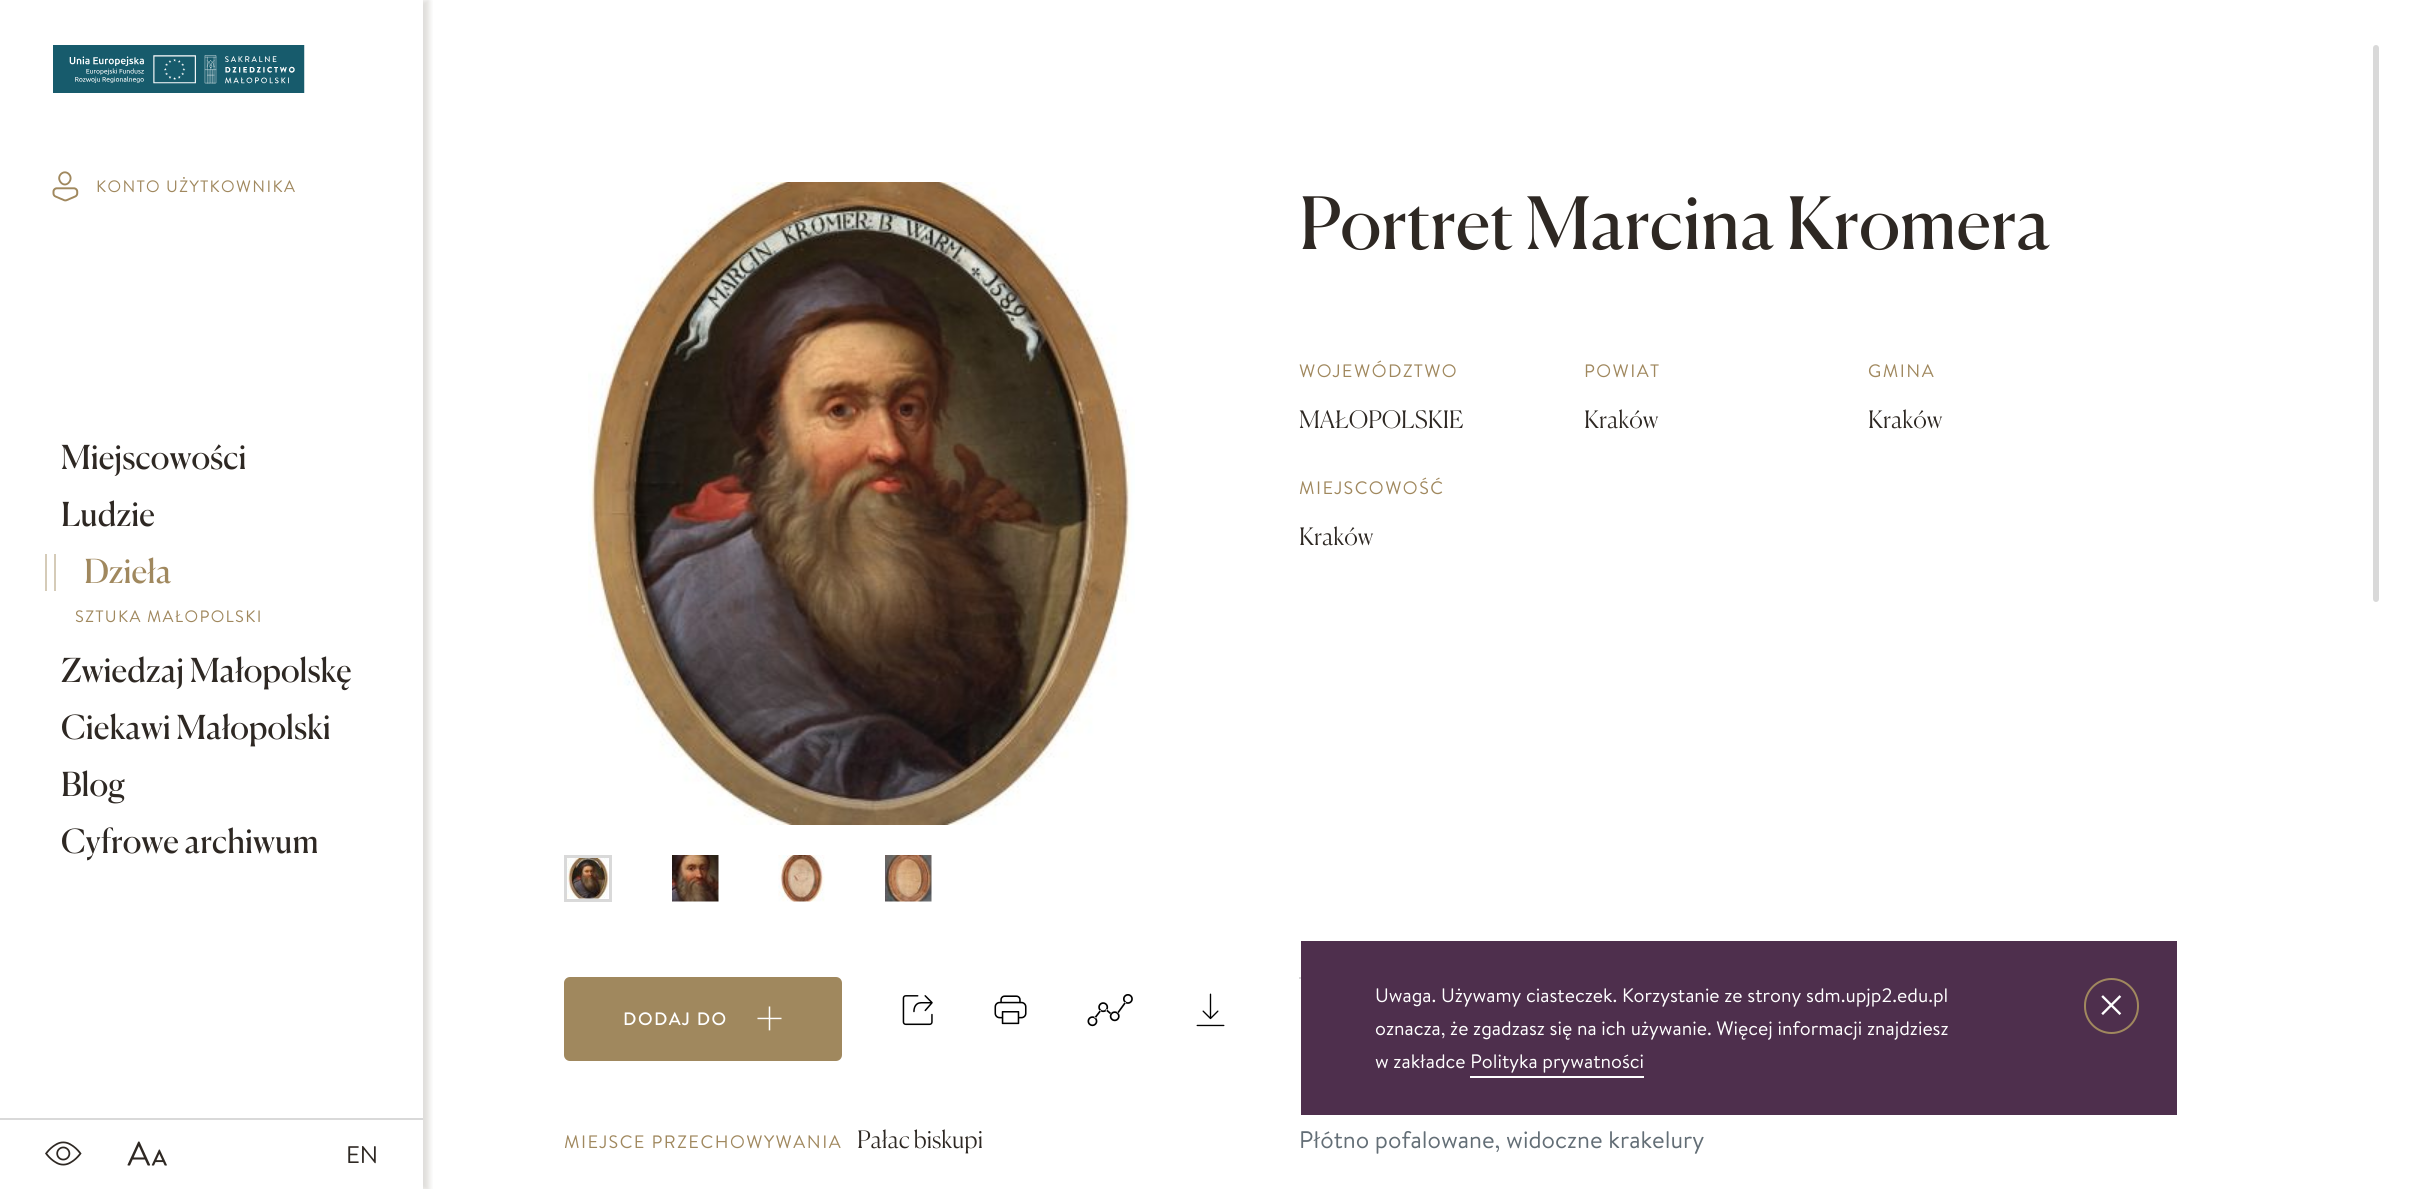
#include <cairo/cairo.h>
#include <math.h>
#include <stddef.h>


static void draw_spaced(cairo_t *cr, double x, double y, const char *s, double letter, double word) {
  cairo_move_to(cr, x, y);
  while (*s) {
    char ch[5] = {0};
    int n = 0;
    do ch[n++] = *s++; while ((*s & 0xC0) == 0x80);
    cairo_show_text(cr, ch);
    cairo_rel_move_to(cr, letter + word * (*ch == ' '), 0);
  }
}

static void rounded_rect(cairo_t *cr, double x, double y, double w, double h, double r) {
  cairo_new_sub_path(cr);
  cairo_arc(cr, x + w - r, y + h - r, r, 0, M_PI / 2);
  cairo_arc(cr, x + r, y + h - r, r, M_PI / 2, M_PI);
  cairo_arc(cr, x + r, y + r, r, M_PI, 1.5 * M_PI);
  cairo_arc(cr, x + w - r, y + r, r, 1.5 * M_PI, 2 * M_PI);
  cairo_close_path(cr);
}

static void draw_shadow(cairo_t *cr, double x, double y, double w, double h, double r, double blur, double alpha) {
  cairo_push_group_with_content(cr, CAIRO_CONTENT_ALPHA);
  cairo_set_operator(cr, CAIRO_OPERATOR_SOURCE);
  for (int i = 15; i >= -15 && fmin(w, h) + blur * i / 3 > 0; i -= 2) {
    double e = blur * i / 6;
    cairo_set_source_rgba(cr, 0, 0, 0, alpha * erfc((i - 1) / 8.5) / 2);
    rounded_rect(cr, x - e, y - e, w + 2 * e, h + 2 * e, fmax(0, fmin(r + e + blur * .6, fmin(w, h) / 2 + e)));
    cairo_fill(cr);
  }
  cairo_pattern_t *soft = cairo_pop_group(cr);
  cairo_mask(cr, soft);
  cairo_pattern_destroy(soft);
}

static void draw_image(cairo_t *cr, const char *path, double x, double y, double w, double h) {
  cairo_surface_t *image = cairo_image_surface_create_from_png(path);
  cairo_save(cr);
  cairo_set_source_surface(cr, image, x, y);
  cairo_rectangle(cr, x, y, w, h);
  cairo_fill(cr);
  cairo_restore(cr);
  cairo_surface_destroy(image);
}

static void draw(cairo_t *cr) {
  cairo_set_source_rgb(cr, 1, 1, 1);
  cairo_paint(cr);
  cairo_save(cr);
  cairo_rectangle(cr, 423, 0, 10, 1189);
  cairo_clip(cr);
  cairo_set_source_rgb(cr, 126 / 255.0, 119 / 255.0, 107 / 255.0);
  draw_shadow(cr, 6, 0, 423, 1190, 0, 3, 0.25);
  cairo_restore(cr);
  draw_image(cr, "images/1.png", 53, 45, 252, 48);
  draw_image(cr, "images/2.png", 52, 171, 27, 31);
  cairo_set_source_rgb(cr, 213 / 255.0, 203 / 255.0, 184 / 255.0);
  cairo_rectangle(cr, 54, 554, 2, 37);
  cairo_fill(cr);
  cairo_rectangle(cr, 45, 554, 2, 37);
  cairo_fill(cr);
  cairo_set_source_rgb(cr, 217 / 255.0, 217 / 255.0, 217 / 255.0);
  cairo_rectangle(cr, 0, 1118, 423, 2);
  cairo_fill(cr);
  draw_image(cr, "images/3.png", 45, 1141, 37, 25);
  draw_image(cr, "images/4.png", 127, 1141, 40, 25);
  draw_image(cr, "images/5.png", 588, 182, 547, 643);
  cairo_rectangle(cr, 565.5, 856.5, 45, 44);
  cairo_set_line_width(cr, 3);
  cairo_stroke(cr);
  draw_image(cr, "images/6.png", 567, 858, 42, 41);
  draw_image(cr, "images/7.png", 672, 855, 47, 47);
  draw_image(cr, "images/8.png", 778, 855, 47, 47);
  draw_image(cr, "images/9.png", 885, 855, 47, 47);
  cairo_set_source_rgb(cr, 160 / 255.0, 136 / 255.0, 94 / 255.0);
  rounded_rect(cr, 564, 977, 278, 84, 6);
  cairo_fill(cr);
  draw_image(cr, "images/10.png", 757, 1006, 25, 25);
  draw_image(cr, "images/11.png", 902, 995, 31, 31);
  draw_image(cr, "images/12.png", 994, 995, 33, 30);
  draw_image(cr, "images/13.png", 1087, 994, 46, 33);
  draw_image(cr, "images/14.png", 1196, 993, 29, 34);
  cairo_set_source_rgb(cr, 217 / 255.0, 217 / 255.0, 217 / 255.0);
  cairo_rectangle(cr, 1299, 977, 2, 2);
  cairo_fill(cr);
  rounded_rect(cr, 2373, 45, 6, 557, 3);
  cairo_fill(cr);
  cairo_set_source_rgb(cr, 78 / 255.0, 47 / 255.0, 77 / 255.0);
  cairo_rectangle(cr, 1301, 941, 876, 174);
  cairo_fill(cr);
  cairo_set_source_rgb(cr, 1, 1, 1);
  cairo_rectangle(cr, 1470, 1076, 174, 2);
  cairo_fill(cr);
  rounded_rect(cr, 2085, 979, 53, 54, 26.5);
  cairo_set_source_rgb(cr, 160 / 255.0, 136 / 255.0, 94 / 255.0);
  cairo_set_line_width(cr, 2);
  cairo_stroke(cr);
  draw_image(cr, "images/15.png", 2101, 995, 21, 20);
  cairo_select_font_face(cr, "Brandon Grotesque", CAIRO_FONT_SLANT_NORMAL, CAIRO_FONT_WEIGHT_NORMAL);
  cairo_set_font_size(cr, 16.5);
  draw_spaced(cr, 96, 192, "KONTO UŻYTKOWNIKA", 1.4, 0);
  cairo_select_font_face(cr, "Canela", CAIRO_FONT_SLANT_NORMAL, CAIRO_FONT_WEIGHT_NORMAL);
  cairo_set_font_size(cr, 33);
  cairo_set_source_rgb(cr, 46 / 255.0, 40 / 255.0, 35 / 255.0);
  cairo_move_to(cr, 61, 469);
  cairo_show_text(cr, "Miejscowości");
  cairo_move_to(cr, 61, 526);
  cairo_show_text(cr, "Ludzie");
  cairo_set_source_rgb(cr, 160 / 255.0, 136 / 255.0, 94 / 255.0);
  cairo_move_to(cr, 84, 583);
  cairo_show_text(cr, "Dzieła");
  cairo_select_font_face(cr, "Brandon Grotesque", CAIRO_FONT_SLANT_NORMAL, CAIRO_FONT_WEIGHT_NORMAL);
  cairo_set_font_size(cr, 16.5);
  draw_spaced(cr, 75, 622, "SZTUKA MAŁOPOLSKI", 1.4, 0);
  cairo_select_font_face(cr, "Canela", CAIRO_FONT_SLANT_NORMAL, CAIRO_FONT_WEIGHT_NORMAL);
  cairo_set_font_size(cr, 33);
  cairo_set_source_rgb(cr, 46 / 255.0, 40 / 255.0, 35 / 255.0);
  cairo_move_to(cr, 61, 682);
  cairo_show_text(cr, "Zwiedzaj Małopolskę");
  cairo_move_to(cr, 61, 739);
  cairo_show_text(cr, "Ciekawi Małopolski");
  cairo_move_to(cr, 61, 796);
  cairo_show_text(cr, "Blog");
  cairo_move_to(cr, 61, 853);
  cairo_show_text(cr, "Cyfrowe archiwum");
  cairo_select_font_face(cr, "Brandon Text", CAIRO_FONT_SLANT_NORMAL, CAIRO_FONT_WEIGHT_NORMAL);
  cairo_set_font_size(cr, 24);
  cairo_move_to(cr, 346, 1163);
  cairo_show_text(cr, "EN");
  cairo_select_font_face(cr, "Canela", CAIRO_FONT_SLANT_NORMAL, CAIRO_FONT_WEIGHT_NORMAL);
  cairo_set_font_size(cr, 72);
  cairo_move_to(cr, 1299, 249);
  cairo_show_text(cr, "Portret Marcina Kromera");
  cairo_select_font_face(cr, "Brandon Grotesque", CAIRO_FONT_SLANT_NORMAL, CAIRO_FONT_WEIGHT_NORMAL);
  cairo_set_font_size(cr, 18);
  cairo_set_source_rgb(cr, 160 / 255.0, 136 / 255.0, 94 / 255.0);
  draw_spaced(cr, 1299, 377, "WOJEWÓDZTWO", 1.5, 0);
  cairo_select_font_face(cr, "Canela Light", CAIRO_FONT_SLANT_NORMAL, CAIRO_FONT_WEIGHT_NORMAL);
  cairo_set_font_size(cr, 24);
  cairo_set_source_rgb(cr, 46 / 255.0, 40 / 255.0, 35 / 255.0);
  cairo_move_to(cr, 1299, 428);
  cairo_show_text(cr, "MAŁOPOLSKIE");
  cairo_select_font_face(cr, "Brandon Grotesque", CAIRO_FONT_SLANT_NORMAL, CAIRO_FONT_WEIGHT_NORMAL);
  cairo_set_font_size(cr, 18);
  cairo_set_source_rgb(cr, 160 / 255.0, 136 / 255.0, 94 / 255.0);
  draw_spaced(cr, 1584, 377, "POWIAT", 1.5, 0);
  cairo_select_font_face(cr, "Canela Light", CAIRO_FONT_SLANT_NORMAL, CAIRO_FONT_WEIGHT_NORMAL);
  cairo_set_font_size(cr, 24);
  cairo_set_source_rgb(cr, 46 / 255.0, 40 / 255.0, 35 / 255.0);
  cairo_move_to(cr, 1584, 428);
  cairo_show_text(cr, "Kraków");
  cairo_select_font_face(cr, "Brandon Grotesque", CAIRO_FONT_SLANT_NORMAL, CAIRO_FONT_WEIGHT_NORMAL);
  cairo_set_font_size(cr, 18);
  cairo_set_source_rgb(cr, 160 / 255.0, 136 / 255.0, 94 / 255.0);
  draw_spaced(cr, 1868, 377, "GMINA", 1.5, 0);
  cairo_select_font_face(cr, "Canela Light", CAIRO_FONT_SLANT_NORMAL, CAIRO_FONT_WEIGHT_NORMAL);
  cairo_set_font_size(cr, 24);
  cairo_set_source_rgb(cr, 46 / 255.0, 40 / 255.0, 35 / 255.0);
  cairo_move_to(cr, 1868, 428);
  cairo_show_text(cr, "Kraków");
  cairo_select_font_face(cr, "Brandon Grotesque", CAIRO_FONT_SLANT_NORMAL, CAIRO_FONT_WEIGHT_NORMAL);
  cairo_set_font_size(cr, 18);
  cairo_set_source_rgb(cr, 160 / 255.0, 136 / 255.0, 94 / 255.0);
  draw_spaced(cr, 1299, 494, "MIEJSCOWOŚĆ", 1.5, 0);
  cairo_select_font_face(cr, "Canela Light", CAIRO_FONT_SLANT_NORMAL, CAIRO_FONT_WEIGHT_NORMAL);
  cairo_set_font_size(cr, 24);
  cairo_set_source_rgb(cr, 46 / 255.0, 40 / 255.0, 35 / 255.0);
  cairo_move_to(cr, 1299, 545);
  cairo_show_text(cr, "Kraków");
  cairo_select_font_face(cr, "Brandon Grotesque Medium", CAIRO_FONT_SLANT_NORMAL, CAIRO_FONT_WEIGHT_NORMAL);
  cairo_set_font_size(cr, 18);
  cairo_set_source_rgb(cr, 1, 1, 1);
  draw_spaced(cr, 623, 1025, "DODAJ DO", 1.5, 0);
  cairo_select_font_face(cr, "Brandon Grotesque", CAIRO_FONT_SLANT_NORMAL, CAIRO_FONT_WEIGHT_NORMAL);
  cairo_set_source_rgb(cr, 160 / 255.0, 136 / 255.0, 94 / 255.0);
  draw_spaced(cr, 564, 1148, "MIEJSCE PRZECHOWYWANIA", 1.5, 0);
  cairo_select_font_face(cr, "Canela Light", CAIRO_FONT_SLANT_NORMAL, CAIRO_FONT_WEIGHT_NORMAL);
  cairo_set_font_size(cr, 24);
  cairo_set_source_rgb(cr, 46 / 255.0, 40 / 255.0, 35 / 255.0);
  cairo_move_to(cr, 857, 1148);
  cairo_show_text(cr, "Pałac biskupi");
  cairo_select_font_face(cr, "Brandon Text", CAIRO_FONT_SLANT_NORMAL, CAIRO_FONT_WEIGHT_NORMAL);
  cairo_set_source_rgb(cr, 99 / 255.0, 110 / 255.0, 118 / 255.0);
  cairo_move_to(cr, 1299, 1148);
  cairo_show_text(cr, "Płótno pofalowane, widoczne krakelury");
  cairo_set_font_size(cr, 19.5);
  cairo_set_source_rgb(cr, 1, 1, 1);
  cairo_move_to(cr, 1375, 1002);
  cairo_show_text(cr, "Uwaga. Używamy ciasteczek. Korzystanie ze strony sdm.upjp2.edu.pl");
  cairo_move_to(cr, 1375, 1035);
  cairo_show_text(cr, "oznacza, że zgadzasz się na ich używanie. Więcej informacji znajdziesz");
  cairo_move_to(cr, 1375, 1068);
  cairo_show_text(cr, "w zakładce Polityka prywatności");
}

int main(void) {
  cairo_surface_t *surface = cairo_image_surface_create(CAIRO_FORMAT_RGB24, 2417, 1189);
  cairo_t *cr = cairo_create(surface);
  cairo_font_options_t *options = cairo_font_options_create();
  cairo_font_options_set_hint_metrics(options, CAIRO_HINT_METRICS_OFF);
  cairo_font_options_set_hint_style(options, CAIRO_HINT_STYLE_NONE);
  cairo_set_font_options(cr, options);
  cairo_set_miter_limit(cr, 4);
  draw(cr);
  cairo_surface_write_to_png(surface, "out.png");
  cairo_font_options_destroy(options);
  cairo_destroy(cr);
  cairo_surface_destroy(surface);
  return 0;
}
